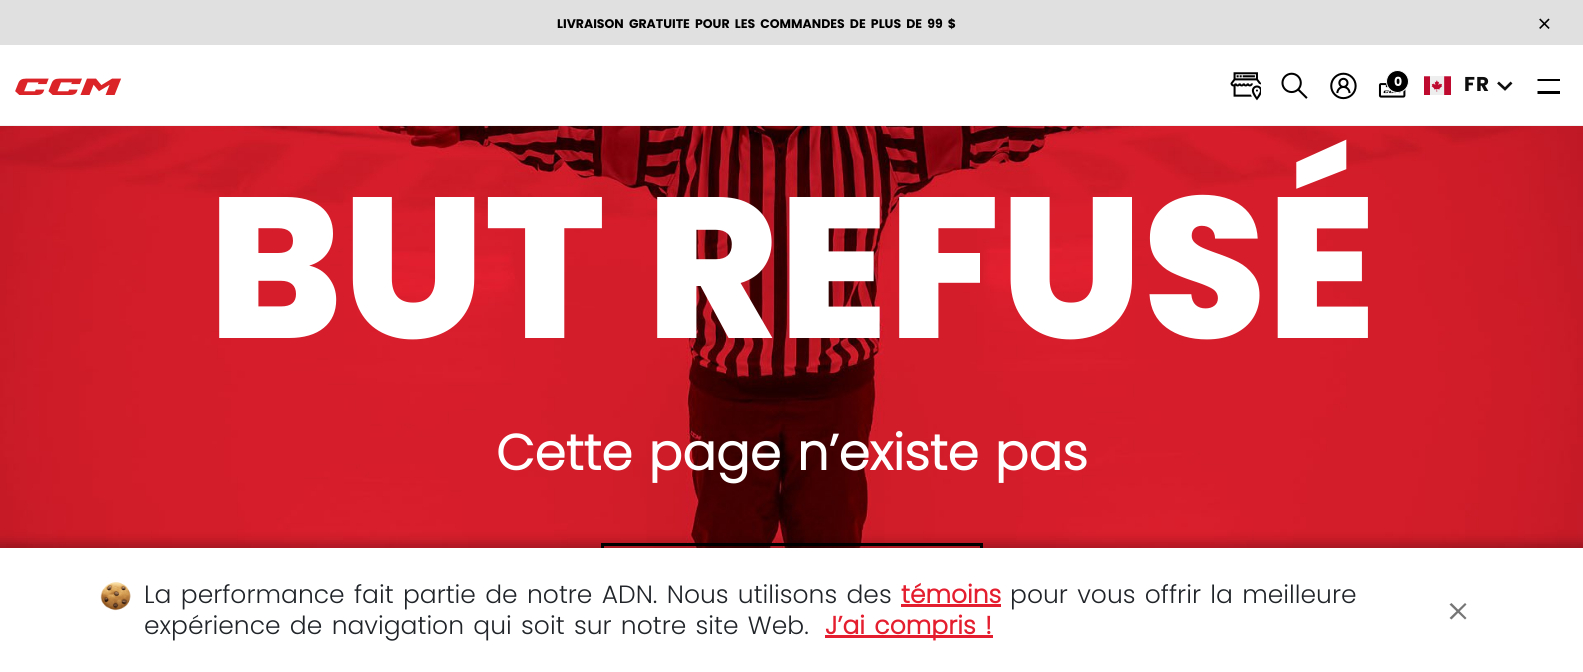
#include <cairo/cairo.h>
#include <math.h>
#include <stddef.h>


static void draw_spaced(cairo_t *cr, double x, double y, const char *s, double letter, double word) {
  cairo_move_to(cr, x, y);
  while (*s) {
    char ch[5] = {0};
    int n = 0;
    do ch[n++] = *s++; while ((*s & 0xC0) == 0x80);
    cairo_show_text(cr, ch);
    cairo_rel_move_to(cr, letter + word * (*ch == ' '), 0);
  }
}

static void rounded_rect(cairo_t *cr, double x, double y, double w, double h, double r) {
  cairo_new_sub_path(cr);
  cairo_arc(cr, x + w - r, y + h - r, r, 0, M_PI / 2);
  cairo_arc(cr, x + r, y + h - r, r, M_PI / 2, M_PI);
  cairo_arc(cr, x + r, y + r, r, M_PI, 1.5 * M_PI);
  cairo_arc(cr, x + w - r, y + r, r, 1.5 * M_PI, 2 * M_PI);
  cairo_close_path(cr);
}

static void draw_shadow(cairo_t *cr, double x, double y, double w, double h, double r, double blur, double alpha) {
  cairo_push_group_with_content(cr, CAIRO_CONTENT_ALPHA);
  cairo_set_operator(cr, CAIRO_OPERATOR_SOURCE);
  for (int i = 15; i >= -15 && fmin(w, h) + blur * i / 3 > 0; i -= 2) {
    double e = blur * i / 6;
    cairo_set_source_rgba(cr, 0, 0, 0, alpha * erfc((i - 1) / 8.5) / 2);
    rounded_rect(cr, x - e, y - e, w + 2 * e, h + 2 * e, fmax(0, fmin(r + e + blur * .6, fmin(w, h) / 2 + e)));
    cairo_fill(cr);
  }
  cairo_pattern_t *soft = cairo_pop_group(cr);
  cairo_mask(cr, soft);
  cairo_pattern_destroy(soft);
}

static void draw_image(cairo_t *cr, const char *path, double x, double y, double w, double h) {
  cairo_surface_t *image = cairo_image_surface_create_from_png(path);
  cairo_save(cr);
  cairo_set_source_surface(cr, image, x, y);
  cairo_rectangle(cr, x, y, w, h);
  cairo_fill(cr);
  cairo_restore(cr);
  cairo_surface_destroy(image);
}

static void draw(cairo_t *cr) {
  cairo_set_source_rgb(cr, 1, 1, 1);
  cairo_paint(cr);
  cairo_set_source_rgb(cr, 224 / 255.0, 224 / 255.0, 224 / 255.0);
  cairo_rectangle(cr, 0, 0, 1583, 45);
  cairo_fill(cr);
  draw_image(cr, "images/1.png", 15, 78, 107, 17);
  draw_image(cr, "images/2.png", 1230, 72, 31, 29);
  draw_image(cr, "images/3.png", 1281, 72, 27, 27);
  draw_image(cr, "images/4.png", 1330, 72, 27, 28);
  draw_image(cr, "images/5.png", 1378, 80, 28, 18);
  cairo_set_source_rgb(cr, 0, 0, 0);
  cairo_arc(cr, 1397.5, 81.5, 11, 0, 2 * M_PI);
  cairo_fill_preserve(cr);
  cairo_set_source_rgb(cr, 1, 1, 1);
  cairo_set_line_width(cr, 1);
  cairo_stroke(cr);
  draw_image(cr, "images/6.png", 1424, 76, 27, 19);
  cairo_new_path(cr);
  cairo_move_to(cr, 1511.5, 82.5);
  cairo_line_to(cr, 1505, 89);
  cairo_line_to(cr, 1498, 82.5);
  cairo_set_source_rgb(cr, 14 / 255.0, 14 / 255.0, 14 / 255.0);
  cairo_set_line_width(cr, 2.7);
  cairo_stroke(cr);
  cairo_set_source_rgb(cr, 0, 0, 0);
  cairo_set_fill_rule(cr, CAIRO_FILL_RULE_EVEN_ODD);
  cairo_new_path(cr);
  cairo_move_to(cr, 1560, 79);
  cairo_line_to(cr, 1537.5, 79);
  cairo_line_to(cr, 1537.5, 81);
  cairo_line_to(cr, 1560, 81);
  cairo_close_path(cr);
  cairo_move_to(cr, 1560, 91);
  cairo_line_to(cr, 1537.5, 91);
  cairo_line_to(cr, 1537.5, 94);
  cairo_line_to(cr, 1560, 94);
  cairo_close_path(cr);
  cairo_fill(cr);
  cairo_set_source_rgb(cr, 242 / 255.0, 242 / 255.0, 242 / 255.0);
  cairo_rectangle(cr, 0, 125, 1583, 1);
  cairo_fill(cr);
  draw_image(cr, "images/7.png", 0, 126, 1583, 422);
  cairo_rectangle(cr, 602.5, 544.5, 379, 69);
  cairo_set_source_rgb(cr, 0, 0, 0);
  cairo_set_line_width(cr, 3);
  cairo_stroke(cr);
  cairo_set_source_rgb(cr, 0, 0, 0);
  draw_shadow(cr, -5, 543, 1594, 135, 0, 6, 0.25);
  cairo_set_source_rgb(cr, 1, 1, 1);
  cairo_rectangle(cr, 0, 548, 1583, 124);
  cairo_fill(cr);
  draw_image(cr, "images/8.png", 100, 582, 31, 29);
  cairo_set_source_rgb(cr, 228 / 255.0, 30 / 255.0, 46 / 255.0);
  cairo_rectangle(cr, 901, 604, 100, 3);
  cairo_fill(cr);
  cairo_rectangle(cr, 825, 635, 168, 3);
  cairo_fill(cr);
  cairo_set_source_rgb(cr, 118 / 255.0, 118 / 255.0, 118 / 255.0);
  cairo_set_fill_rule(cr, CAIRO_FILL_RULE_WINDING);
  cairo_new_path(cr);
  cairo_move_to(cr, 1451.5, 603);
  cairo_line_to(cr, 1466.5, 618);
  cairo_line_to(cr, 1465, 619.5);
  cairo_line_to(cr, 1449.5, 604.5);
  cairo_close_path(cr);
  cairo_fill(cr);
  cairo_new_path(cr);
  cairo_move_to(cr, 1466.5, 604.5);
  cairo_line_to(cr, 1451.5, 619.5);
  cairo_line_to(cr, 1449.5, 618);
  cairo_line_to(cr, 1465, 603);
  cairo_close_path(cr);
  cairo_fill(cr);
  cairo_select_font_face(cr, "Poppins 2", CAIRO_FONT_SLANT_NORMAL, CAIRO_FONT_WEIGHT_BOLD);
  cairo_set_font_size(cr, 12.5);
  cairo_set_source_rgb(cr, 0, 0, 0);
  draw_spaced(cr, 557, 28, "LIVRAISON GRATUITE POUR LES COMMANDES DE PLUS DE 99 $", 0, 2.5);
  cairo_select_font_face(cr, "Poppins Light", CAIRO_FONT_SLANT_NORMAL, CAIRO_FONT_WEIGHT_NORMAL);
  cairo_set_font_size(cr, 25);
  cairo_move_to(cr, 1537, 33);
  cairo_show_text(cr, "×");
  cairo_select_font_face(cr, "Poppins 2", CAIRO_FONT_SLANT_NORMAL, CAIRO_FONT_WEIGHT_BOLD);
  cairo_set_font_size(cr, 12.5);
  cairo_set_source_rgb(cr, 1, 1, 1);
  cairo_move_to(cr, 1394, 86);
  cairo_show_text(cr, "0");
  cairo_set_font_size(cr, 20);
  cairo_set_source_rgb(cr, 14 / 255.0, 14 / 255.0, 14 / 255.0);
  draw_spaced(cr, 1464, 91, "FR", 1, 0);
  cairo_select_font_face(cr, "Poppins ExtraBold", CAIRO_FONT_SLANT_NORMAL, CAIRO_FONT_WEIGHT_NORMAL);
  cairo_set_font_size(cr, 200);
  cairo_set_source_rgb(cr, 1, 1, 1);
  draw_spaced(cr, 208, 338, "BUT REFUSÉ", 0, 2.5);
  cairo_select_font_face(cr, "Poppins", CAIRO_FONT_SLANT_NORMAL, CAIRO_FONT_WEIGHT_BOLD);
  cairo_set_font_size(cr, 50);
  draw_spaced(cr, 496, 470, "Cette page n’existe pas", 0, 2.5);
  cairo_select_font_face(cr, "Poppins Light", CAIRO_FONT_SLANT_NORMAL, CAIRO_FONT_WEIGHT_NORMAL);
  cairo_set_font_size(cr, 25);
  cairo_set_source_rgb(cr, 33 / 255.0, 37 / 255.0, 41 / 255.0);
  draw_spaced(cr, 144, 603, "La performance fait partie de notre ADN. Nous utilisons des", 0, 2.5);
  cairo_select_font_face(cr, "Poppins", CAIRO_FONT_SLANT_NORMAL, CAIRO_FONT_WEIGHT_BOLD);
  cairo_set_source_rgb(cr, 228 / 255.0, 30 / 255.0, 46 / 255.0);
  cairo_move_to(cr, 901, 603);
  cairo_show_text(cr, "témoins");
  cairo_select_font_face(cr, "Poppins Light", CAIRO_FONT_SLANT_NORMAL, CAIRO_FONT_WEIGHT_NORMAL);
  cairo_set_source_rgb(cr, 33 / 255.0, 37 / 255.0, 41 / 255.0);
  draw_spaced(cr, 1010, 603, "pour vous offrir la meilleure", 0, 2.5);
  draw_spaced(cr, 144, 634, "expérience de navigation qui soit sur notre site Web.", 0, 2.5);
  cairo_select_font_face(cr, "Poppins", CAIRO_FONT_SLANT_NORMAL, CAIRO_FONT_WEIGHT_BOLD);
  cairo_set_source_rgb(cr, 228 / 255.0, 30 / 255.0, 46 / 255.0);
  draw_spaced(cr, 825, 634, "J’ai compris !", 0, 2.5);
}

int main(void) {
  cairo_surface_t *surface = cairo_image_surface_create(CAIRO_FORMAT_RGB24, 1583, 672);
  cairo_t *cr = cairo_create(surface);
  cairo_font_options_t *options = cairo_font_options_create();
  cairo_font_options_set_hint_metrics(options, CAIRO_HINT_METRICS_OFF);
  cairo_font_options_set_hint_style(options, CAIRO_HINT_STYLE_NONE);
  cairo_set_font_options(cr, options);
  cairo_set_miter_limit(cr, 4);
  draw(cr);
  cairo_surface_write_to_png(surface, "out.png");
  cairo_font_options_destroy(options);
  cairo_destroy(cr);
  cairo_surface_destroy(surface);
  return 0;
}
